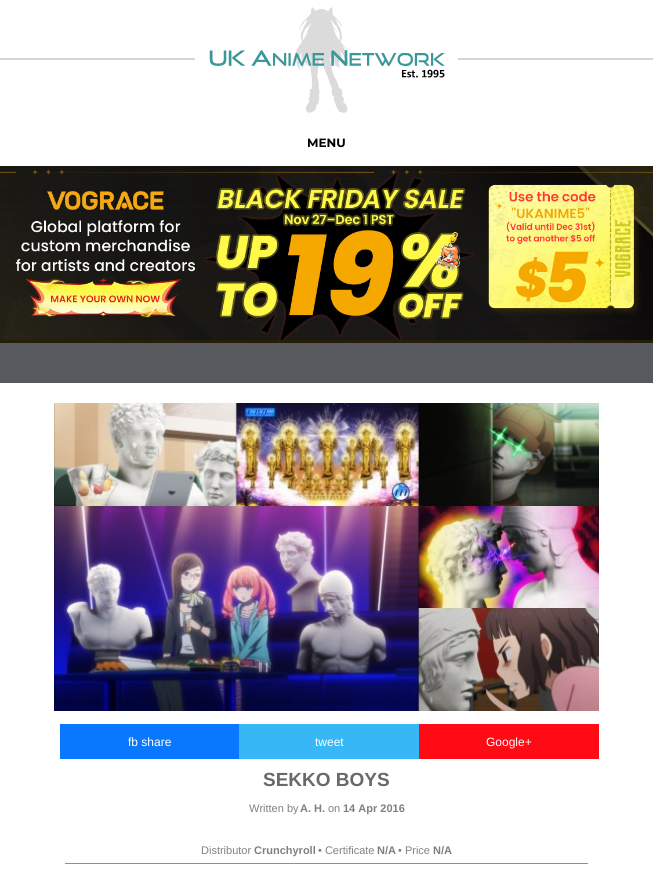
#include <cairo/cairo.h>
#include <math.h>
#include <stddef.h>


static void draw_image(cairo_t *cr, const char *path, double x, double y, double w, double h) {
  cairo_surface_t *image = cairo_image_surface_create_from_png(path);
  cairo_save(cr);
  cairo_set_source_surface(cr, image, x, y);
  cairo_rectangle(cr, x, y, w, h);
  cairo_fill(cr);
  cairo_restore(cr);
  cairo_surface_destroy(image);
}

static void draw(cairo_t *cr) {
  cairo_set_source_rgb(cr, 38 / 255.0, 30 / 255.0, 7 / 255.0);
  cairo_paint(cr);
  cairo_set_source_rgb(cr, 1, 1, 1);
  cairo_rectangle(cr, 0, 0, 653, 166);
  cairo_fill(cr);
  cairo_set_source_rgb(cr, 214 / 255.0, 214 / 255.0, 214 / 255.0);
  cairo_rectangle(cr, 0, 58, 653, 2);
  cairo_fill(cr);
  draw_image(cr, "images/1.png", 195, 7, 263, 106);
  draw_image(cr, "images/2.png", 0, 166, 653, 174);
  cairo_set_source_rgb(cr, 1, 1, 1);
  cairo_rectangle(cr, 0, 383, 653, 506);
  cairo_fill(cr);
  cairo_set_source_rgb(cr, 86 / 255.0, 89 / 255.0, 93 / 255.0);
  cairo_rectangle(cr, 0, 343, 653, 40);
  cairo_fill(cr);
  draw_image(cr, "images/3.png", 54, 403, 545, 308);
  cairo_set_source_rgb(cr, 10 / 255.0, 119 / 255.0, 1);
  cairo_rectangle(cr, 60, 724, 179, 35);
  cairo_fill(cr);
  cairo_set_source_rgb(cr, 55 / 255.0, 183 / 255.0, 245 / 255.0);
  cairo_rectangle(cr, 239, 724, 180, 35);
  cairo_fill(cr);
  cairo_set_source_rgb(cr, 1, 10 / 255.0, 21 / 255.0);
  cairo_rectangle(cr, 419, 724, 180, 35);
  cairo_fill(cr);
  cairo_set_source_rgb(cr, 144 / 255.0, 144 / 255.0, 144 / 255.0);
  cairo_rectangle(cr, 65, 863, 523, 1);
  cairo_fill(cr);
  cairo_select_font_face(cr, "Montserrat", CAIRO_FONT_SLANT_NORMAL, CAIRO_FONT_WEIGHT_BOLD);
  cairo_set_font_size(cr, 12);
  cairo_set_source_rgb(cr, 0, 0, 0);
  cairo_move_to(cr, 307, 147);
  cairo_show_text(cr, "MENU");
  cairo_select_font_face(cr, "Liberation Sans", CAIRO_FONT_SLANT_NORMAL, CAIRO_FONT_WEIGHT_NORMAL);
  cairo_set_source_rgb(cr, 1, 1, 1);
  cairo_move_to(cr, 128, 746);
  cairo_show_text(cr, "fb share");
  cairo_move_to(cr, 315, 746);
  cairo_show_text(cr, "tweet");
  cairo_move_to(cr, 486, 746);
  cairo_show_text(cr, "Google+");
  cairo_select_font_face(cr, "Liberation Sans", CAIRO_FONT_SLANT_NORMAL, CAIRO_FONT_WEIGHT_BOLD);
  cairo_set_font_size(cr, 19);
  cairo_set_source_rgb(cr, 105 / 255.0, 105 / 255.0, 105 / 255.0);
  cairo_move_to(cr, 263, 786);
  cairo_show_text(cr, "SEKKO BOYS");
  cairo_select_font_face(cr, "Liberation Sans", CAIRO_FONT_SLANT_NORMAL, CAIRO_FONT_WEIGHT_NORMAL);
  cairo_set_font_size(cr, 11);
  cairo_set_source_rgb(cr, 128 / 255.0, 128 / 255.0, 128 / 255.0);
  cairo_move_to(cr, 249, 812);
  cairo_show_text(cr, "Written by");
  cairo_select_font_face(cr, "Liberation Sans", CAIRO_FONT_SLANT_NORMAL, CAIRO_FONT_WEIGHT_BOLD);
  cairo_move_to(cr, 300, 812);
  cairo_show_text(cr, "A. H.");
  cairo_select_font_face(cr, "Liberation Sans", CAIRO_FONT_SLANT_NORMAL, CAIRO_FONT_WEIGHT_NORMAL);
  cairo_move_to(cr, 328, 812);
  cairo_show_text(cr, "on");
  cairo_select_font_face(cr, "Liberation Sans", CAIRO_FONT_SLANT_NORMAL, CAIRO_FONT_WEIGHT_BOLD);
  cairo_move_to(cr, 343, 812);
  cairo_show_text(cr, "14 Apr 2016");
  cairo_select_font_face(cr, "Liberation Sans", CAIRO_FONT_SLANT_NORMAL, CAIRO_FONT_WEIGHT_NORMAL);
  cairo_move_to(cr, 201, 854);
  cairo_show_text(cr, "Distributor");
  cairo_select_font_face(cr, "Liberation Sans", CAIRO_FONT_SLANT_NORMAL, CAIRO_FONT_WEIGHT_BOLD);
  cairo_move_to(cr, 254, 854);
  cairo_show_text(cr, "Crunchyroll");
  cairo_select_font_face(cr, "Liberation Sans", CAIRO_FONT_SLANT_NORMAL, CAIRO_FONT_WEIGHT_NORMAL);
  cairo_move_to(cr, 318, 854);
  cairo_show_text(cr, "• Certificate");
  cairo_select_font_face(cr, "Liberation Sans", CAIRO_FONT_SLANT_NORMAL, CAIRO_FONT_WEIGHT_BOLD);
  cairo_move_to(cr, 377, 854);
  cairo_show_text(cr, "N/A");
  cairo_select_font_face(cr, "Liberation Sans", CAIRO_FONT_SLANT_NORMAL, CAIRO_FONT_WEIGHT_NORMAL);
  cairo_move_to(cr, 398, 854);
  cairo_show_text(cr, "• Price");
  cairo_select_font_face(cr, "Liberation Sans", CAIRO_FONT_SLANT_NORMAL, CAIRO_FONT_WEIGHT_BOLD);
  cairo_move_to(cr, 433, 854);
  cairo_show_text(cr, "N/A");
}

int main(void) {
  cairo_surface_t *surface = cairo_image_surface_create(CAIRO_FORMAT_RGB24, 653, 889);
  cairo_t *cr = cairo_create(surface);
  cairo_font_options_t *options = cairo_font_options_create();
  cairo_font_options_set_hint_metrics(options, CAIRO_HINT_METRICS_OFF);
  cairo_font_options_set_hint_style(options, CAIRO_HINT_STYLE_NONE);
  cairo_set_font_options(cr, options);
  cairo_set_miter_limit(cr, 4);
  draw(cr);
  cairo_surface_write_to_png(surface, "out.png");
  cairo_font_options_destroy(options);
  cairo_destroy(cr);
  cairo_surface_destroy(surface);
  return 0;
}
